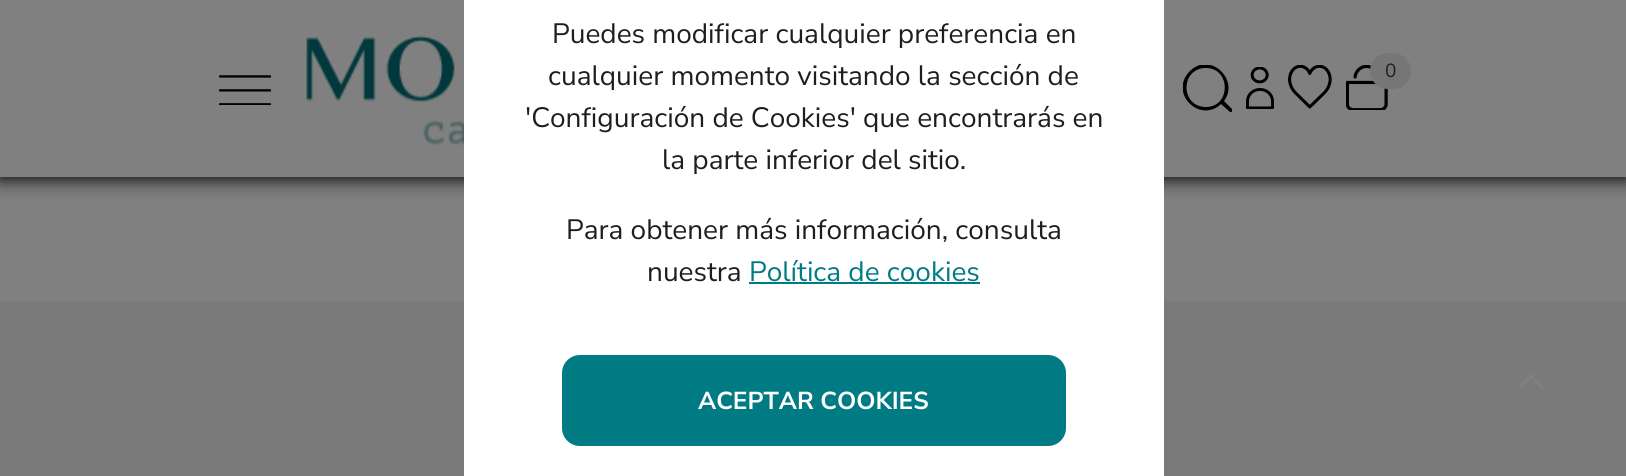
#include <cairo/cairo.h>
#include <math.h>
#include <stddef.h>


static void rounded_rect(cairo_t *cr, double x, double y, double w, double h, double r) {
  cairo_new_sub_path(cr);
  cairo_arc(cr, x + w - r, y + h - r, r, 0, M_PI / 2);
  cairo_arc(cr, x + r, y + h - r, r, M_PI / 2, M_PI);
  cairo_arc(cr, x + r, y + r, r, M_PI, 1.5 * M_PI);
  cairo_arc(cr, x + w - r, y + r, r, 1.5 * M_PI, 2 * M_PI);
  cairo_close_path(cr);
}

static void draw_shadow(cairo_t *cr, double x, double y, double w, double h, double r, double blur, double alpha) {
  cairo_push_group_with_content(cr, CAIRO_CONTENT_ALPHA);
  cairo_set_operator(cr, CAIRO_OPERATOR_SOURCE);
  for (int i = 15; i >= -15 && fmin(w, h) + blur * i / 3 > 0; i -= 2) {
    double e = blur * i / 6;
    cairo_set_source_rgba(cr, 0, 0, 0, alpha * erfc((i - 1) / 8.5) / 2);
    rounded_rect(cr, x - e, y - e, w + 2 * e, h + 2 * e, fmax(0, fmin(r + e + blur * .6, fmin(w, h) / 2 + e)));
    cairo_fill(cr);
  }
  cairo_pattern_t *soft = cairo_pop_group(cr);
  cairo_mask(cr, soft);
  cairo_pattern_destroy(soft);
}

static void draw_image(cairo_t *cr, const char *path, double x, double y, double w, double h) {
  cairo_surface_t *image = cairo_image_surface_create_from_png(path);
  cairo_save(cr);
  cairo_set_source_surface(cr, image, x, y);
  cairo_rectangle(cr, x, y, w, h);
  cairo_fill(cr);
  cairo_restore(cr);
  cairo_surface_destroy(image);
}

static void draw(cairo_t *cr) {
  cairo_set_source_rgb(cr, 128 / 255.0, 128 / 255.0, 128 / 255.0);
  cairo_paint(cr);
  cairo_set_source_rgb(cr, 0, 0, 0);
  draw_shadow(cr, 0, 2, 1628, 177, 0, 9, 1);
  cairo_set_source_rgb(cr, 128 / 255.0, 128 / 255.0, 128 / 255.0);
  cairo_rectangle(cr, 0, 0, 1626, 177);
  cairo_fill(cr);
  cairo_set_source_rgb(cr, 122 / 255.0, 122 / 255.0, 122 / 255.0);
  cairo_rectangle(cr, 0, 301, 1626, 175);
  cairo_fill(cr);
  cairo_set_source_rgb(cr, 1, 1, 1);
  cairo_rectangle(cr, 464, 0, 700, 476);
  cairo_fill(cr);
  cairo_set_source_rgb(cr, 0, 123 / 255.0, 131 / 255.0);
  cairo_rectangle(cr, 749, 282, 231, 2);
  cairo_fill(cr);
  rounded_rect(cr, 562, 355, 504, 91, 18);
  cairo_fill(cr);
  draw_image(cr, "images/1.png", 219, 75, 52, 30);
  draw_image(cr, "images/2.png", 306, 35, 158, 110);
  cairo_save(cr);
  cairo_rectangle(cr, 1183, 65, 49, 47);
  cairo_clip(cr);
  cairo_set_source_rgb(cr, 0, 0, 0);
  cairo_new_path(cr);
  cairo_move_to(cr, 1232, 109);
  cairo_line_to(cr, 1224, 101);
  cairo_curve_to(cr, 1240, 80, 1210, 51, 1190, 71);
  cairo_curve_to(cr, 1168, 93, 1200, 124, 1221, 104);
  cairo_line_to(cr, 1230, 112);
  cairo_curve_to(cr, 1231, 113, 1233, 111, 1232, 109);
  cairo_close_path(cr);
  cairo_move_to(cr, 1206, 107);
  cairo_curve_to(cr, 1180, 107, 1180, 68, 1206, 68);
  cairo_curve_to(cr, 1231, 68, 1231, 107, 1206, 107);
  cairo_close_path(cr);
  cairo_fill(cr);
  cairo_restore(cr);
  draw_image(cr, "images/3.png", 1246, 67, 28, 42);
  draw_image(cr, "images/4.png", 1288, 65, 44, 44);
  draw_image(cr, "images/5.png", 1346, 65, 42, 45);
  cairo_set_source_rgb(cr, 118 / 255.0, 118 / 255.0, 118 / 255.0);
  rounded_rect(cr, 1370, 53, 41, 36, 18);
  cairo_fill(cr);
  cairo_new_path(cr);
  cairo_move_to(cr, 1542, 387);
  cairo_line_to(cr, 1531, 376);
  cairo_line_to(cr, 1521, 387);
  cairo_set_source_rgb(cr, 128 / 255.0, 128 / 255.0, 128 / 255.0);
  cairo_set_line_width(cr, 3.5);
  cairo_set_line_cap(cr, CAIRO_LINE_CAP_ROUND);
  cairo_set_line_join(cr, CAIRO_LINE_JOIN_ROUND);
  cairo_stroke(cr);
  cairo_select_font_face(cr, "Nunito Sans", CAIRO_FONT_SLANT_NORMAL, CAIRO_FONT_WEIGHT_NORMAL);
  cairo_set_font_size(cr, 28);
  cairo_set_source_rgb(cr, 30 / 255.0, 30 / 255.0, 30 / 255.0);
  cairo_move_to(cr, 552, 43);
  cairo_show_text(cr, "Puedes modificar cualquier preferencia en");
  cairo_move_to(cr, 548, 85);
  cairo_show_text(cr, "cualquier momento visitando la sección de");
  cairo_move_to(cr, 525, 127);
  cairo_show_text(cr, "'Configuración de Cookies' que encontrarás en");
  cairo_move_to(cr, 662, 169);
  cairo_show_text(cr, "la parte inferior del sitio.");
  cairo_move_to(cr, 566, 239);
  cairo_show_text(cr, "Para obtener más información, consulta");
  cairo_move_to(cr, 647, 281);
  cairo_show_text(cr, "nuestra");
  cairo_set_source_rgb(cr, 0, 123 / 255.0, 131 / 255.0);
  cairo_move_to(cr, 749, 281);
  cairo_show_text(cr, "Política de cookies");
  cairo_select_font_face(cr, "Nunito Sans", CAIRO_FONT_SLANT_NORMAL, CAIRO_FONT_WEIGHT_BOLD);
  cairo_set_font_size(cr, 24.5);
  cairo_set_source_rgb(cr, 1, 1, 1);
  cairo_move_to(cr, 698, 409);
  cairo_show_text(cr, "ACEPTAR COOKIES");
  cairo_select_font_face(cr, "Nunito Sans", CAIRO_FONT_SLANT_NORMAL, CAIRO_FONT_WEIGHT_NORMAL);
  cairo_set_font_size(cr, 19);
  cairo_set_source_rgb(cr, 30 / 255.0, 30 / 255.0, 30 / 255.0);
  cairo_move_to(cr, 1385, 77);
  cairo_show_text(cr, "0");
}

int main(void) {
  cairo_surface_t *surface = cairo_image_surface_create(CAIRO_FORMAT_RGB24, 1626, 476);
  cairo_t *cr = cairo_create(surface);
  cairo_font_options_t *options = cairo_font_options_create();
  cairo_font_options_set_hint_metrics(options, CAIRO_HINT_METRICS_OFF);
  cairo_font_options_set_hint_style(options, CAIRO_HINT_STYLE_NONE);
  cairo_set_font_options(cr, options);
  cairo_set_miter_limit(cr, 4);
  draw(cr);
  cairo_surface_write_to_png(surface, "out.png");
  cairo_font_options_destroy(options);
  cairo_destroy(cr);
  cairo_surface_destroy(surface);
  return 0;
}
